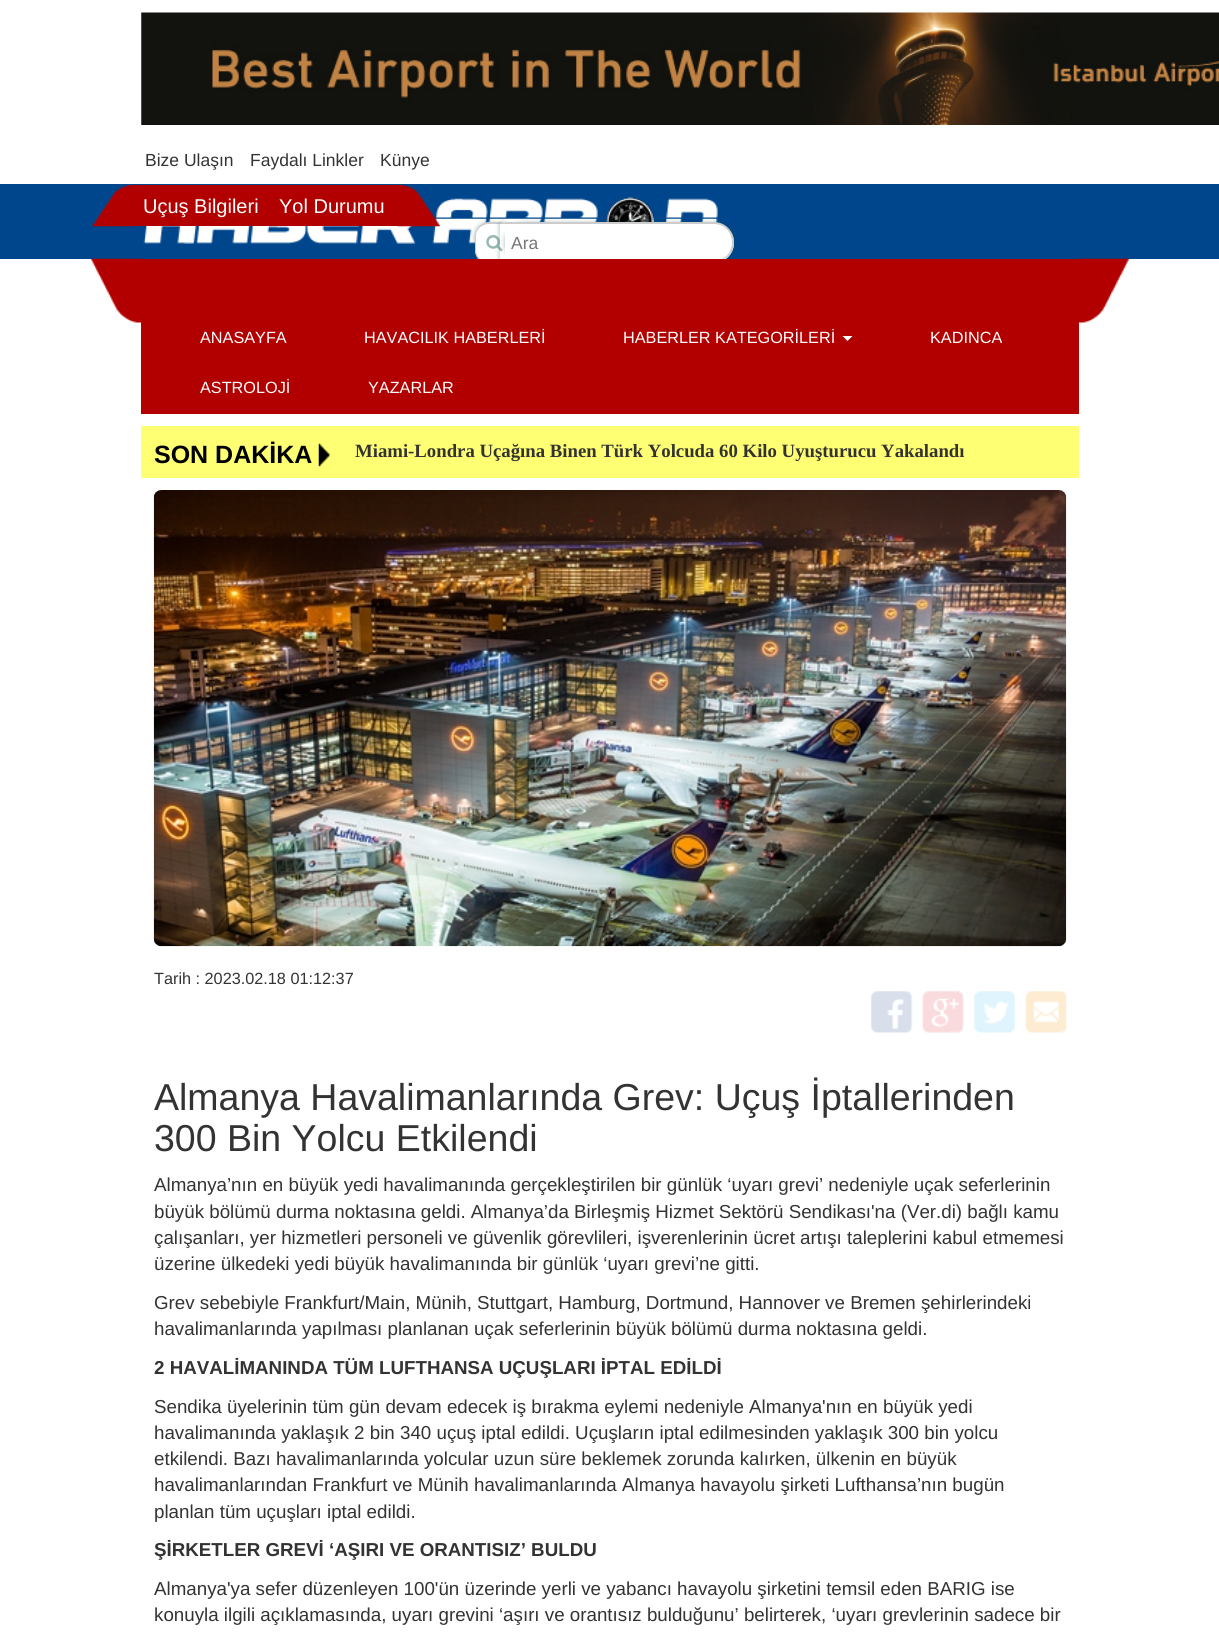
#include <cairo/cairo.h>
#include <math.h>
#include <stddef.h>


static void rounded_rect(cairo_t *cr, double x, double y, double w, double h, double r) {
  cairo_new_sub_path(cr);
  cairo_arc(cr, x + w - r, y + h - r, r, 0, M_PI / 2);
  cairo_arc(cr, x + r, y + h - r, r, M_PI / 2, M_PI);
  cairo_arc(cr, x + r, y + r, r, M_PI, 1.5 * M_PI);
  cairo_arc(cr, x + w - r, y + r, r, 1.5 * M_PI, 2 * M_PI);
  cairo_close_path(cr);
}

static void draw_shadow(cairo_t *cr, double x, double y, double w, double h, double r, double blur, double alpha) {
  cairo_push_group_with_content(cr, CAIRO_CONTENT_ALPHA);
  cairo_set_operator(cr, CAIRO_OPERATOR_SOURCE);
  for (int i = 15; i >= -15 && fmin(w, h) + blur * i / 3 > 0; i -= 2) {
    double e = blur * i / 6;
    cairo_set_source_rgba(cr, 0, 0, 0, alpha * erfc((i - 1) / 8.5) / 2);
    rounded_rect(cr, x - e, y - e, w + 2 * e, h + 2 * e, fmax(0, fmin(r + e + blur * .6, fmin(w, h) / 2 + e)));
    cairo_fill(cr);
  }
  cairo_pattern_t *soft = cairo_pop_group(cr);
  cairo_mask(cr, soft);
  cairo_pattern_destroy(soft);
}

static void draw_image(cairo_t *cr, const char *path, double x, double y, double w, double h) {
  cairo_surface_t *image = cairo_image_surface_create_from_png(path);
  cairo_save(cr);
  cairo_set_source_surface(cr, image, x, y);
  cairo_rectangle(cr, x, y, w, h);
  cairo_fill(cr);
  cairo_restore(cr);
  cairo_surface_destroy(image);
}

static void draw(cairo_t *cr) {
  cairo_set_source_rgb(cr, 1, 1, 1);
  cairo_paint(cr);
  draw_image(cr, "images/1.png", 141, 12, 1078, 113);
  cairo_set_source_rgb(cr, 0, 70 / 255.0, 140 / 255.0);
  cairo_rectangle(cr, 0, 184, 1219, 75);
  cairo_fill(cr);
  draw_image(cr, "images/5.png", 143, 197, 575, 47);
  cairo_set_source_rgb(cr, 178 / 255.0, 0, 0);
  cairo_rectangle(cr, 135, 185, 263, 41);
  cairo_fill(cr);
  draw_image(cr, "images/2.png", 92, 185, 43, 42);
  draw_image(cr, "images/3.png", 397, 185, 43, 42);
  cairo_set_source_rgb(cr, 0, 77 / 255.0, 64 / 255.0);
  draw_shadow(cr, 475, 223, 28, 41, 14, 2.5, 0.4);
  cairo_set_source_rgb(cr, 1, 1, 1);
  cairo_new_path(cr);
  cairo_move_to(cr, 489, 223);
  cairo_line_to(cr, 503, 223);
  cairo_line_to(cr, 503, 264);
  cairo_line_to(cr, 489, 264);
  cairo_curve_to(cr, 481.5, 264, 475, 257.5, 475, 250);
  cairo_line_to(cr, 475, 237);
  cairo_curve_to(cr, 475, 229.5, 481.5, 223, 489, 223);
  cairo_close_path(cr);
  cairo_fill(cr);
  cairo_set_source_rgb(cr, 204 / 255.0, 204 / 255.0, 204 / 255.0);
  cairo_set_fill_rule(cr, CAIRO_FILL_RULE_EVEN_ODD);
  cairo_new_path(cr);
  cairo_move_to(cr, 489, 222);
  cairo_line_to(cr, 502, 222);
  cairo_line_to(cr, 502, 264);
  cairo_line_to(cr, 489, 264);
  cairo_curve_to(cr, 481, 264, 475, 258, 475, 250);
  cairo_line_to(cr, 475, 236);
  cairo_curve_to(cr, 475, 229, 481, 222, 489, 222);
  cairo_close_path(cr);
  cairo_move_to(cr, 489, 224);
  cairo_line_to(cr, 502, 224);
  cairo_line_to(cr, 502, 262);
  cairo_line_to(cr, 489, 262);
  cairo_curve_to(cr, 482, 262, 476, 257, 476, 250);
  cairo_line_to(cr, 476, 236);
  cairo_curve_to(cr, 476, 229, 482, 224, 489, 224);
  cairo_close_path(cr);
  cairo_fill(cr);
  cairo_set_source_rgb(cr, 0, 77 / 255.0, 64 / 255.0);
  draw_shadow(cr, 500, 223, 5, 40, 0, 2.5, 0.4);
  cairo_set_source_rgb(cr, 1, 1, 1);
  cairo_rectangle(cr, 500, 223, 5, 40);
  cairo_fill(cr);
  cairo_set_source_rgb(cr, 204 / 255.0, 204 / 255.0, 204 / 255.0);
  cairo_rectangle(cr, 500, 223, 5, 1);
  cairo_fill(cr);
  cairo_set_source_rgb(cr, 0, 77 / 255.0, 64 / 255.0);
  draw_shadow(cr, 505, 223, 229, 40, 20, 2.5, 0.4);
  cairo_set_source_rgb(cr, 1, 1, 1);
  cairo_new_path(cr);
  cairo_move_to(cr, 505, 223);
  cairo_line_to(cr, 714, 223);
  cairo_curve_to(cr, 725, 223, 734, 232, 734, 243);
  cairo_curve_to(cr, 734, 254, 725, 263, 714, 263);
  cairo_line_to(cr, 505, 263);
  cairo_close_path(cr);
  cairo_fill(cr);
  cairo_set_source_rgb(cr, 204 / 255.0, 204 / 255.0, 204 / 255.0);
  cairo_new_path(cr);
  cairo_move_to(cr, 505, 222);
  cairo_line_to(cr, 714, 222);
  cairo_curve_to(cr, 725, 222, 734, 231, 734, 242);
  cairo_curve_to(cr, 734, 254, 725, 262, 714, 262);
  cairo_line_to(cr, 505, 262);
  cairo_close_path(cr);
  cairo_move_to(cr, 505, 224);
  cairo_line_to(cr, 714, 224);
  cairo_curve_to(cr, 724, 224, 732, 232, 732, 242);
  cairo_curve_to(cr, 732, 253, 724, 261, 714, 261);
  cairo_line_to(cr, 505, 261);
  cairo_close_path(cr);
  cairo_fill(cr);
  draw_image(cr, "images/4.png", 486, 235, 17, 17);
  draw_image(cr, "images/6.png", 91, 258, 51, 65);
  cairo_set_source_rgb(cr, 178 / 255.0, 0, 0);
  cairo_rectangle(cr, 141, 259, 938, 155);
  cairo_fill(cr);
  draw_image(cr, "images/7.png", 1077, 258, 52, 65);
  cairo_set_source_rgb(cr, 1, 1, 1);
  cairo_set_fill_rule(cr, CAIRO_FILL_RULE_WINDING);
  cairo_new_path(cr);
  cairo_move_to(cr, 842.5, 336);
  cairo_line_to(cr, 852.5, 336);
  cairo_line_to(cr, 847.5, 341);
  cairo_close_path(cr);
  cairo_fill(cr);
  cairo_set_source_rgb(cr, 1, 1, 115 / 255.0);
  cairo_rectangle(cr, 141, 426, 938, 52);
  cairo_fill(cr);
  draw_image(cr, "images/8.png", 318, 443, 12, 24);
  draw_image(cr, "images/9.png", 153, 490, 914, 457);
  draw_image(cr, "images/10.png", 871, 991, 42, 42);
  draw_image(cr, "images/11.png", 922, 991, 42, 42);
  draw_image(cr, "images/12.png", 973, 991, 42, 42);
  draw_image(cr, "images/13.png", 1025, 991, 42, 42);
  cairo_select_font_face(cr, "Liberation Sans", CAIRO_FONT_SLANT_NORMAL, CAIRO_FONT_WEIGHT_NORMAL);
  cairo_set_font_size(cr, 17.5);
  cairo_set_source_rgb(cr, 51 / 255.0, 51 / 255.0, 51 / 255.0);
  cairo_move_to(cr, 145, 166);
  cairo_show_text(cr, "Bize Ulaşın");
  cairo_move_to(cr, 250, 166);
  cairo_show_text(cr, "Faydalı Linkler");
  cairo_move_to(cr, 380, 166);
  cairo_show_text(cr, "Künye");
  cairo_set_font_size(cr, 20);
  cairo_set_source_rgb(cr, 1, 1, 1);
  cairo_move_to(cr, 143, 213);
  cairo_show_text(cr, "Uçuş Bilgileri");
  cairo_move_to(cr, 279, 213);
  cairo_show_text(cr, "Yol Durumu");
  cairo_set_font_size(cr, 17.5);
  cairo_set_source_rgb(cr, 117 / 255.0, 117 / 255.0, 117 / 255.0);
  cairo_move_to(cr, 511, 249);
  cairo_show_text(cr, "Ara");
  cairo_set_font_size(cr, 16.25);
  cairo_set_source_rgb(cr, 1, 1, 1);
  cairo_move_to(cr, 200, 343);
  cairo_show_text(cr, "ANASAYFA");
  cairo_move_to(cr, 364, 343);
  cairo_show_text(cr, "HAVACILIK HABERLERİ");
  cairo_move_to(cr, 623, 343);
  cairo_show_text(cr, "HABERLER KATEGORİLERİ");
  cairo_move_to(cr, 930, 343);
  cairo_show_text(cr, "KADINCA");
  cairo_move_to(cr, 200, 393);
  cairo_show_text(cr, "ASTROLOJİ");
  cairo_move_to(cr, 368, 393);
  cairo_show_text(cr, "YAZARLAR");
  cairo_select_font_face(cr, "Liberation Sans", CAIRO_FONT_SLANT_NORMAL, CAIRO_FONT_WEIGHT_BOLD);
  cairo_set_font_size(cr, 25);
  cairo_set_source_rgb(cr, 0, 0, 0);
  cairo_move_to(cr, 154, 463);
  cairo_show_text(cr, "SON DAKİKA");
  cairo_select_font_face(cr, "Liberation Serif", CAIRO_FONT_SLANT_NORMAL, CAIRO_FONT_WEIGHT_BOLD);
  cairo_set_font_size(cr, 18.75);
  cairo_set_source_rgb(cr, 51 / 255.0, 51 / 255.0, 51 / 255.0);
  cairo_move_to(cr, 355, 457);
  cairo_show_text(cr, "Miami-Londra Uçağına Binen Türk Yolcuda 60 Kilo Uyuşturucu Yakalandı");
  cairo_select_font_face(cr, "Liberation Sans", CAIRO_FONT_SLANT_NORMAL, CAIRO_FONT_WEIGHT_NORMAL);
  cairo_set_font_size(cr, 16.25);
  cairo_move_to(cr, 154, 984);
  cairo_show_text(cr, "Tarih : 2023.02.18 01:12:37");
  cairo_set_font_size(cr, 37.5);
  cairo_move_to(cr, 154, 1110);
  cairo_show_text(cr, "Almanya Havalimanlarında Grev: Uçuş İptallerinden");
  cairo_move_to(cr, 154, 1151);
  cairo_show_text(cr, "300 Bin Yolcu Etkilendi");
  cairo_set_font_size(cr, 18.75);
  cairo_move_to(cr, 154, 1191);
  cairo_show_text(cr, "Almanya’nın en büyük yedi havalimanında gerçekleştirilen bir günlük ‘uyarı grevi’ nedeniyle uçak seferlerinin");
  cairo_move_to(cr, 154, 1218);
  cairo_show_text(cr, "büyük bölümü durma noktasına geldi. Almanya’da Birleşmiş Hizmet Sektörü Sendikası'na (Ver.di) bağlı kamu");
  cairo_move_to(cr, 154, 1244);
  cairo_show_text(cr, "çalışanları, yer hizmetleri personeli ve güvenlik görevlileri, işverenlerinin ücret artışı taleplerini kabul etmemesi");
  cairo_move_to(cr, 154, 1270);
  cairo_show_text(cr, "üzerine ülkedeki yedi büyük havalimanında bir günlük ‘uyarı grevi’ne gitti.");
  cairo_move_to(cr, 154, 1309);
  cairo_show_text(cr, "Grev sebebiyle Frankfurt/Main, Münih, Stuttgart, Hamburg, Dortmund, Hannover ve Bremen şehirlerindeki");
  cairo_move_to(cr, 154, 1335);
  cairo_show_text(cr, "havalimanlarında yapılması planlanan uçak seferlerinin büyük bölümü durma noktasına geldi.");
  cairo_select_font_face(cr, "Liberation Sans", CAIRO_FONT_SLANT_NORMAL, CAIRO_FONT_WEIGHT_BOLD);
  cairo_move_to(cr, 154, 1374);
  cairo_show_text(cr, "2 HAVALİMANINDA TÜM LUFTHANSA UÇUŞLARI İPTAL EDİLDİ");
  cairo_select_font_face(cr, "Liberation Sans", CAIRO_FONT_SLANT_NORMAL, CAIRO_FONT_WEIGHT_NORMAL);
  cairo_move_to(cr, 154, 1413);
  cairo_show_text(cr, "Sendika üyelerinin tüm gün devam edecek iş bırakma eylemi nedeniyle Almanya'nın en büyük yedi");
  cairo_move_to(cr, 154, 1439);
  cairo_show_text(cr, "havalimanında yaklaşık 2 bin 340 uçuş iptal edildi. Uçuşların iptal edilmesinden yaklaşık 300 bin yolcu");
  cairo_move_to(cr, 154, 1465);
  cairo_show_text(cr, "etkilendi. Bazı havalimanlarında yolcular uzun süre beklemek zorunda kalırken, ülkenin en büyük");
  cairo_move_to(cr, 154, 1491);
  cairo_show_text(cr, "havalimanlarından Frankfurt ve Münih havalimanlarında Almanya havayolu şirketi Lufthansa’nın bugün");
  cairo_move_to(cr, 154, 1518);
  cairo_show_text(cr, "planlan tüm uçuşları iptal edildi.");
  cairo_select_font_face(cr, "Liberation Sans", CAIRO_FONT_SLANT_NORMAL, CAIRO_FONT_WEIGHT_BOLD);
  cairo_move_to(cr, 154, 1556);
  cairo_show_text(cr, "ŞİRKETLER GREVİ ‘AŞIRI VE ORANTISIZ’ BULDU");
  cairo_select_font_face(cr, "Liberation Sans", CAIRO_FONT_SLANT_NORMAL, CAIRO_FONT_WEIGHT_NORMAL);
  cairo_move_to(cr, 154, 1595);
  cairo_show_text(cr, "Almanya'ya sefer düzenleyen 100'ün üzerinde yerli ve yabancı havayolu şirketini temsil eden BARIG ise");
  cairo_move_to(cr, 154, 1621);
  cairo_show_text(cr, "konuyla ilgili açıklamasında, uyarı grevini ‘aşırı ve orantısız bulduğunu’ belirterek, ‘uyarı grevlerinin sadece bir");
}

int main(void) {
  cairo_surface_t *surface = cairo_image_surface_create(CAIRO_FORMAT_RGB24, 1219, 1637);
  cairo_t *cr = cairo_create(surface);
  cairo_font_options_t *options = cairo_font_options_create();
  cairo_font_options_set_hint_metrics(options, CAIRO_HINT_METRICS_OFF);
  cairo_font_options_set_hint_style(options, CAIRO_HINT_STYLE_NONE);
  cairo_set_font_options(cr, options);
  cairo_set_miter_limit(cr, 4);
  draw(cr);
  cairo_surface_write_to_png(surface, "out.png");
  cairo_font_options_destroy(options);
  cairo_destroy(cr);
  cairo_surface_destroy(surface);
  return 0;
}
